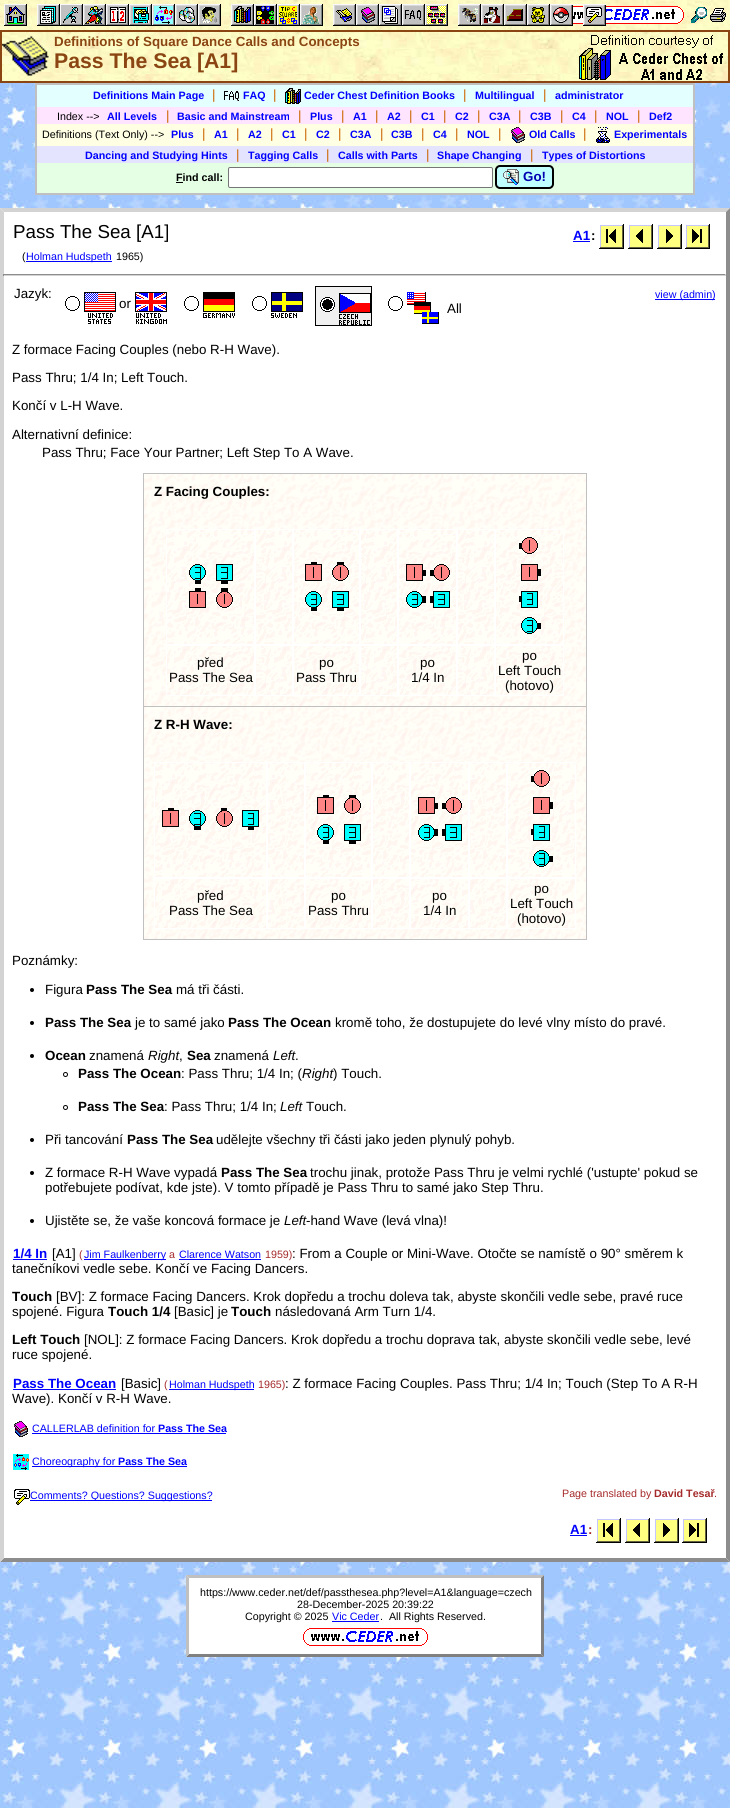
#include <cairo/cairo.h>
#include <math.h>
#include <stddef.h>


static void rounded_rect(cairo_t *cr, double x, double y, double w, double h, double r) {
  cairo_new_sub_path(cr);
  cairo_arc(cr, x + w - r, y + h - r, r, 0, M_PI / 2);
  cairo_arc(cr, x + r, y + h - r, r, M_PI / 2, M_PI);
  cairo_arc(cr, x + r, y + r, r, M_PI, 1.5 * M_PI);
  cairo_arc(cr, x + w - r, y + r, r, 1.5 * M_PI, 2 * M_PI);
  cairo_close_path(cr);
}

static void draw_image(cairo_t *cr, const char *path, double x, double y, double w, double h) {
  cairo_surface_t *image = cairo_image_surface_create_from_png(path);
  cairo_save(cr);
  cairo_set_source_surface(cr, image, x, y);
  cairo_rectangle(cr, x, y, w, h);
  cairo_fill(cr);
  cairo_restore(cr);
  cairo_surface_destroy(image);
}

static void draw(cairo_t *cr) {
  cairo_set_source_rgb(cr, 1, 1, 1);
  cairo_paint(cr);
  draw_image(cr, "images/1.png", 0, 83, 730, 1725);
  draw_image(cr, "images/2.png", 0, 0, 730, 30);
  draw_image(cr, "images/3.png", 573, 6, 111, 18);
  draw_image(cr, "images/4.png", 691, 7, 16, 16);
  draw_image(cr, "images/5.png", 710, 8, 16, 14);
  draw_image(cr, "images/6.png", 4, 4, 602, 22);
  draw_image(cr, "images/7.png", 2, 32, 577, 49);
  cairo_rectangle(cr, 1, 31, 728, 51);
  cairo_set_source_rgb(cr, 139 / 255.0, 69 / 255.0, 19 / 255.0);
  cairo_stroke(cr);
  draw_image(cr, "images/8.png", 2, 36, 47, 40);
  draw_image(cr, "images/9.png", 54, 49, 522, 25);
  draw_image(cr, "images/10.png", 579, 32, 149, 49);
  draw_image(cr, "images/11.png", 579, 35, 144, 45);
  cairo_set_source_rgb(cr, 192 / 255.0, 192 / 255.0, 192 / 255.0);
  cairo_rectangle(cr, 35, 83, 660, 2);
  cairo_fill(cr);
  cairo_rectangle(cr, 693, 83, 2, 112);
  cairo_fill(cr);
  cairo_rectangle(cr, 35, 193, 660, 2);
  cairo_fill(cr);
  cairo_rectangle(cr, 35, 83, 2, 112);
  cairo_fill(cr);
  cairo_set_source_rgb(cr, 228 / 255.0, 1, 1);
  cairo_rectangle(cr, 37, 85, 656, 22);
  cairo_fill(cr);
  draw_image(cr, "images/12.png", 224, 91, 15, 10);
  draw_image(cr, "images/13.png", 285, 88, 16, 16);
  cairo_set_source_rgb(cr, 1, 228 / 255.0, 1);
  cairo_rectangle(cr, 37, 107, 656, 17);
  cairo_fill(cr);
  cairo_set_source_rgb(cr, 1, 1, 228 / 255.0);
  cairo_rectangle(cr, 37, 124, 656, 22);
  cairo_fill(cr);
  draw_image(cr, "images/14.png", 511, 127, 14, 16);
  draw_image(cr, "images/15.png", 596, 127, 14, 16);
  cairo_set_source_rgb(cr, 228 / 255.0, 228 / 255.0, 1);
  cairo_rectangle(cr, 37, 146, 656, 17);
  cairo_fill(cr);
  cairo_set_source_rgb(cr, 228 / 255.0, 1, 228 / 255.0);
  cairo_rectangle(cr, 37, 163, 656, 30);
  cairo_fill(cr);
  cairo_set_source_rgb(cr, 0, 0, 0);
  cairo_rectangle(cr, 176, 182, 7, 1);
  cairo_fill(cr);
  cairo_set_source_rgb(cr, 1, 1, 1);
  rounded_rect(cr, 228.5, 167.5, 264, 20, 1.5);
  cairo_fill_preserve(cr);
  cairo_set_source_rgb(cr, 118 / 255.0, 118 / 255.0, 118 / 255.0);
  cairo_set_line_width(cr, 1);
  cairo_stroke(cr);
  cairo_set_source_rgb(cr, 191 / 255.0, 1, 1);
  rounded_rect(cr, 496, 166, 57, 22, 4);
  cairo_fill_preserve(cr);
  cairo_set_source_rgb(cr, 0, 0, 0);
  cairo_set_line_width(cr, 2);
  cairo_stroke(cr);
  draw_image(cr, "images/16.png", 503, 169, 16, 16);
  cairo_set_source_rgb(cr, 1, 1, 1);
  cairo_rectangle(cr, 0, 208, 730, 1354);
  cairo_fill(cr);
  cairo_set_source_rgb(cr, 211 / 255.0, 211 / 255.0, 211 / 255.0);
  cairo_new_path(cr);
  cairo_move_to(cr, 0, 208);
  cairo_line_to(cr, 730, 208);
  cairo_line_to(cr, 726, 212);
  cairo_line_to(cr, 4, 212);
  cairo_close_path(cr);
  cairo_fill(cr);
  cairo_set_source_rgb(cr, 141 / 255.0, 141 / 255.0, 141 / 255.0);
  cairo_new_path(cr);
  cairo_move_to(cr, 730, 208);
  cairo_line_to(cr, 730, 1562);
  cairo_line_to(cr, 726, 1558);
  cairo_line_to(cr, 726, 212);
  cairo_close_path(cr);
  cairo_fill(cr);
  cairo_new_path(cr);
  cairo_move_to(cr, 730, 1562);
  cairo_line_to(cr, 0, 1562);
  cairo_line_to(cr, 4, 1558);
  cairo_line_to(cr, 726, 1558);
  cairo_close_path(cr);
  cairo_fill(cr);
  cairo_set_source_rgb(cr, 211 / 255.0, 211 / 255.0, 211 / 255.0);
  cairo_new_path(cr);
  cairo_move_to(cr, 0, 1562);
  cairo_line_to(cr, 0, 208);
  cairo_line_to(cr, 4, 212);
  cairo_line_to(cr, 4, 1558);
  cairo_close_path(cr);
  cairo_fill(cr);
  cairo_set_source_rgb(cr, 0, 0, 1);
  cairo_rectangle(cr, 26, 261, 86, 1);
  cairo_fill(cr);
  cairo_rectangle(cr, 573, 241, 17, 1);
  cairo_fill(cr);
  draw_image(cr, "images/17.png", 599, 224, 25, 25);
  draw_image(cr, "images/18.png", 628, 224, 25, 25);
  draw_image(cr, "images/19.png", 657, 224, 25, 25);
  draw_image(cr, "images/20.png", 685, 224, 25, 25);
  cairo_set_source_rgb(cr, 141 / 255.0, 141 / 255.0, 141 / 255.0);
  cairo_rectangle(cr, 3, 274, 723, 1);
  cairo_fill(cr);
  cairo_set_source_rgb(cr, 211 / 255.0, 211 / 255.0, 211 / 255.0);
  cairo_rectangle(cr, 725, 274, 1, 2);
  cairo_fill(cr);
  cairo_rectangle(cr, 3, 275, 723, 1);
  cairo_fill(cr);
  cairo_set_source_rgb(cr, 141 / 255.0, 141 / 255.0, 141 / 255.0);
  cairo_rectangle(cr, 3, 274, 1, 2);
  cairo_fill(cr);
  draw_image(cr, "images/21.png", 65, 296, 15, 15);
  draw_image(cr, "images/22.png", 84, 292, 32, 32);
  draw_image(cr, "images/23.png", 135, 292, 32, 32);
  draw_image(cr, "images/21.png", 184, 296, 15, 15);
  draw_image(cr, "images/24.png", 203, 292, 32, 26);
  draw_image(cr, "images/21.png", 252, 296, 15, 15);
  draw_image(cr, "images/25.png", 271, 292, 32, 26);
  cairo_set_source_rgb(cr, 240 / 255.0, 240 / 255.0, 240 / 255.0);
  cairo_rectangle(cr, 315.5, 286.5, 56, 39);
  cairo_fill_preserve(cr);
  cairo_set_source_rgb(cr, 0, 0, 0);
  cairo_set_line_width(cr, 1);
  cairo_stroke(cr);
  draw_image(cr, "images/26.png", 320, 297, 15, 15);
  draw_image(cr, "images/27.png", 339, 293, 32, 32);
  draw_image(cr, "images/21.png", 388, 296, 15, 15);
  draw_image(cr, "images/28.png", 407, 292, 32, 32);
  cairo_set_source_rgb(cr, 0, 0, 1);
  cairo_rectangle(cr, 655, 299, 60, 1);
  cairo_fill(cr);
  cairo_set_source_rgb(cr, 1, 249 / 255.0, 243 / 255.0);
  cairo_rectangle(cr, 144, 474, 442, 465);
  cairo_fill(cr);
  draw_image(cr, "images/29.png", 143, 473, 444, 467);
  cairo_rectangle(cr, 167, 530, 396, 165);
  cairo_fill(cr);
  draw_image(cr, "images/30.png", 167, 530, 396, 165);
  cairo_rectangle(cr, 166.5, 529.5, 88, 115);
  cairo_set_source_rgb(cr, 1, 1, 1);
  cairo_stroke(cr);
  draw_image(cr, "images/31.png", 189, 564, 44, 44);
  cairo_rectangle(cr, 255.5, 529.5, 37, 115);
  cairo_stroke(cr);
  cairo_rectangle(cr, 293.5, 529.5, 66, 115);
  cairo_stroke(cr);
  draw_image(cr, "images/32.png", 305, 562, 44, 49);
  cairo_rectangle(cr, 360.5, 529.5, 37, 115);
  cairo_stroke(cr);
  cairo_rectangle(cr, 398.5, 529.5, 58, 115);
  cairo_stroke(cr);
  draw_image(cr, "images/33.png", 406, 564, 44, 44);
  cairo_rectangle(cr, 457.5, 529.5, 37, 115);
  cairo_stroke(cr);
  cairo_rectangle(cr, 495.5, 529.5, 68, 115);
  cairo_stroke(cr);
  draw_image(cr, "images/34.png", 519, 537, 22, 97);
  cairo_rectangle(cr, 166.5, 645.5, 88, 50);
  cairo_stroke(cr);
  cairo_rectangle(cr, 255.5, 645.5, 37, 50);
  cairo_stroke(cr);
  cairo_rectangle(cr, 293.5, 645.5, 66, 50);
  cairo_stroke(cr);
  cairo_rectangle(cr, 360.5, 645.5, 37, 50);
  cairo_stroke(cr);
  cairo_rectangle(cr, 398.5, 645.5, 58, 50);
  cairo_stroke(cr);
  cairo_rectangle(cr, 457.5, 645.5, 37, 50);
  cairo_stroke(cr);
  cairo_rectangle(cr, 495.5, 645.5, 68, 50);
  cairo_stroke(cr);
  cairo_set_source_rgb(cr, 1, 249 / 255.0, 243 / 255.0);
  cairo_rectangle(cr, 155, 763, 420, 165);
  cairo_fill(cr);
  draw_image(cr, "images/35.png", 155, 763, 420, 165);
  cairo_rectangle(cr, 154.5, 762.5, 112, 115);
  cairo_set_source_rgb(cr, 1, 1, 1);
  cairo_stroke(cr);
  draw_image(cr, "images/36.png", 162, 808, 97, 22);
  cairo_rectangle(cr, 267.5, 762.5, 37, 115);
  cairo_stroke(cr);
  cairo_rectangle(cr, 305.5, 762.5, 66, 115);
  cairo_stroke(cr);
  draw_image(cr, "images/37.png", 317, 795, 44, 49);
  cairo_rectangle(cr, 372.5, 762.5, 37, 115);
  cairo_stroke(cr);
  cairo_rectangle(cr, 410.5, 762.5, 58, 115);
  cairo_stroke(cr);
  draw_image(cr, "images/38.png", 418, 797, 44, 44);
  cairo_rectangle(cr, 469.5, 762.5, 37, 115);
  cairo_stroke(cr);
  cairo_rectangle(cr, 507.5, 762.5, 68, 115);
  cairo_stroke(cr);
  draw_image(cr, "images/39.png", 531, 770, 22, 97);
  cairo_rectangle(cr, 154.5, 878.5, 112, 50);
  cairo_stroke(cr);
  cairo_rectangle(cr, 267.5, 878.5, 37, 50);
  cairo_stroke(cr);
  cairo_rectangle(cr, 305.5, 878.5, 66, 50);
  cairo_stroke(cr);
  cairo_rectangle(cr, 372.5, 878.5, 37, 50);
  cairo_stroke(cr);
  cairo_rectangle(cr, 410.5, 878.5, 58, 50);
  cairo_stroke(cr);
  cairo_rectangle(cr, 469.5, 878.5, 37, 50);
  cairo_stroke(cr);
  cairo_rectangle(cr, 507.5, 878.5, 68, 50);
  cairo_stroke(cr);
  cairo_set_source_rgb(cr, 0, 0, 0);
  cairo_arc(cr, 32, 990, 2, 0, 2 * M_PI);
  cairo_fill(cr);
  cairo_arc(cr, 32, 1023, 2, 0, 2 * M_PI);
  cairo_fill(cr);
  cairo_arc(cr, 32, 1056, 2, 0, 2 * M_PI);
  cairo_fill(cr);
  cairo_arc(cr, 65.5, 1074.5, 2, 0, 2 * M_PI);
  cairo_stroke(cr);
  cairo_arc(cr, 65.5, 1107.5, 2, 0, 2 * M_PI);
  cairo_stroke(cr);
  cairo_arc(cr, 32, 1140, 2, 0, 2 * M_PI);
  cairo_fill(cr);
  cairo_arc(cr, 32, 1173, 2, 0, 2 * M_PI);
  cairo_fill(cr);
  cairo_arc(cr, 32, 1221, 2, 0, 2 * M_PI);
  cairo_fill(cr);
  cairo_set_source_rgb(cr, 0, 0, 1);
  cairo_rectangle(cr, 13, 1259, 34, 1);
  cairo_fill(cr);
  cairo_rectangle(cr, 84, 1259, 82, 1);
  cairo_fill(cr);
  cairo_rectangle(cr, 179, 1259, 82, 1);
  cairo_fill(cr);
  cairo_rectangle(cr, 13, 1389, 103, 1);
  cairo_fill(cr);
  cairo_rectangle(cr, 169, 1389, 85, 1);
  cairo_fill(cr);
  draw_image(cr, "images/40.png", 14, 1421, 14, 16);
  cairo_rectangle(cr, 32, 1433, 194, 1);
  cairo_fill(cr);
  draw_image(cr, "images/41.png", 13, 1454, 16, 16);
  cairo_rectangle(cr, 32, 1466, 155, 1);
  cairo_fill(cr);
  draw_image(cr, "images/42.png", 14, 1489, 16, 16);
  cairo_rectangle(cr, 30, 1500, 182, 1);
  cairo_fill(cr);
  cairo_rectangle(cr, 570, 1535, 17, 1);
  cairo_fill(cr);
  draw_image(cr, "images/17.png", 596, 1518, 25, 25);
  draw_image(cr, "images/18.png", 625, 1518, 25, 25);
  draw_image(cr, "images/19.png", 654, 1518, 25, 25);
  draw_image(cr, "images/20.png", 682, 1518, 25, 25);
  cairo_set_source_rgb(cr, 1, 1, 1);
  cairo_rectangle(cr, 186, 1575, 358, 82);
  cairo_fill(cr);
  cairo_set_source_rgb(cr, 192 / 255.0, 192 / 255.0, 192 / 255.0);
  cairo_new_path(cr);
  cairo_move_to(cr, 186, 1575);
  cairo_line_to(cr, 544, 1575);
  cairo_line_to(cr, 541, 1578);
  cairo_line_to(cr, 189, 1578);
  cairo_close_path(cr);
  cairo_fill(cr);
  cairo_set_source_rgb(cr, 128 / 255.0, 128 / 255.0, 128 / 255.0);
  cairo_new_path(cr);
  cairo_move_to(cr, 544, 1575);
  cairo_line_to(cr, 544, 1657);
  cairo_line_to(cr, 541, 1654);
  cairo_line_to(cr, 541, 1578);
  cairo_close_path(cr);
  cairo_fill(cr);
  cairo_new_path(cr);
  cairo_move_to(cr, 544, 1657);
  cairo_line_to(cr, 186, 1657);
  cairo_line_to(cr, 189, 1654);
  cairo_line_to(cr, 541, 1654);
  cairo_close_path(cr);
  cairo_fill(cr);
  cairo_set_source_rgb(cr, 192 / 255.0, 192 / 255.0, 192 / 255.0);
  cairo_new_path(cr);
  cairo_move_to(cr, 186, 1657);
  cairo_line_to(cr, 186, 1575);
  cairo_line_to(cr, 189, 1578);
  cairo_line_to(cr, 189, 1654);
  cairo_close_path(cr);
  cairo_fill(cr);
  cairo_set_source_rgb(cr, 0, 0, 1);
  cairo_rectangle(cr, 332, 1621, 47, 1);
  cairo_fill(cr);
  draw_image(cr, "images/43.png", 303, 1628, 125, 18);
  cairo_select_font_face(cr, "Liberation Sans", CAIRO_FONT_SLANT_NORMAL, CAIRO_FONT_WEIGHT_BOLD);
  cairo_set_font_size(cr, 13.35);
  cairo_set_source_rgb(cr, 139 / 255.0, 69 / 255.0, 19 / 255.0);
  cairo_move_to(cr, 54, 46);
  cairo_show_text(cr, "Definitions of Square Dance Calls and Concepts");
  cairo_set_font_size(cr, 21.25);
  cairo_move_to(cr, 54, 68);
  cairo_show_text(cr, "Pass The Sea [A1]");
  cairo_set_font_size(cr, 10.7);
  cairo_set_source_rgb(cr, 0, 0, 1);
  cairo_move_to(cr, 93, 99);
  cairo_show_text(cr, "Definitions Main Page");
  cairo_select_font_face(cr, "Liberation Sans", CAIRO_FONT_SLANT_NORMAL, CAIRO_FONT_WEIGHT_NORMAL);
  cairo_set_font_size(cr, 13.35);
  cairo_set_source_rgb(cr, 204 / 255.0, 102 / 255.0, 0);
  cairo_move_to(cr, 212, 99);
  cairo_show_text(cr, "|");
  cairo_select_font_face(cr, "Liberation Sans", CAIRO_FONT_SLANT_NORMAL, CAIRO_FONT_WEIGHT_BOLD);
  cairo_set_font_size(cr, 10.7);
  cairo_set_source_rgb(cr, 0, 0, 1);
  cairo_move_to(cr, 243, 99);
  cairo_show_text(cr, "FAQ");
  cairo_select_font_face(cr, "Liberation Sans", CAIRO_FONT_SLANT_NORMAL, CAIRO_FONT_WEIGHT_NORMAL);
  cairo_set_font_size(cr, 13.35);
  cairo_set_source_rgb(cr, 204 / 255.0, 102 / 255.0, 0);
  cairo_move_to(cr, 273, 99);
  cairo_show_text(cr, "|");
  cairo_select_font_face(cr, "Liberation Sans", CAIRO_FONT_SLANT_NORMAL, CAIRO_FONT_WEIGHT_BOLD);
  cairo_set_font_size(cr, 10.7);
  cairo_set_source_rgb(cr, 0, 0, 1);
  cairo_move_to(cr, 304, 99);
  cairo_show_text(cr, "Ceder Chest Definition Books");
  cairo_select_font_face(cr, "Liberation Sans", CAIRO_FONT_SLANT_NORMAL, CAIRO_FONT_WEIGHT_NORMAL);
  cairo_set_font_size(cr, 13.35);
  cairo_set_source_rgb(cr, 204 / 255.0, 102 / 255.0, 0);
  cairo_move_to(cr, 463, 99);
  cairo_show_text(cr, "|");
  cairo_select_font_face(cr, "Liberation Sans", CAIRO_FONT_SLANT_NORMAL, CAIRO_FONT_WEIGHT_BOLD);
  cairo_set_font_size(cr, 10.7);
  cairo_set_source_rgb(cr, 0, 0, 1);
  cairo_move_to(cr, 475, 99);
  cairo_show_text(cr, "Multilingual");
  cairo_select_font_face(cr, "Liberation Sans", CAIRO_FONT_SLANT_NORMAL, CAIRO_FONT_WEIGHT_NORMAL);
  cairo_set_font_size(cr, 13.35);
  cairo_set_source_rgb(cr, 204 / 255.0, 102 / 255.0, 0);
  cairo_move_to(cr, 543, 99);
  cairo_show_text(cr, "|");
  cairo_select_font_face(cr, "Liberation Sans", CAIRO_FONT_SLANT_NORMAL, CAIRO_FONT_WEIGHT_BOLD);
  cairo_set_font_size(cr, 10.7);
  cairo_set_source_rgb(cr, 0, 0, 1);
  cairo_move_to(cr, 555, 99);
  cairo_show_text(cr, "administrator");
  cairo_select_font_face(cr, "Liberation Sans", CAIRO_FONT_SLANT_NORMAL, CAIRO_FONT_WEIGHT_NORMAL);
  cairo_set_source_rgb(cr, 0, 0, 0);
  cairo_move_to(cr, 57, 120);
  cairo_show_text(cr, "Index -->");
  cairo_select_font_face(cr, "Liberation Sans", CAIRO_FONT_SLANT_NORMAL, CAIRO_FONT_WEIGHT_BOLD);
  cairo_set_source_rgb(cr, 0, 0, 1);
  cairo_move_to(cr, 107, 120);
  cairo_show_text(cr, "All Levels");
  cairo_select_font_face(cr, "Liberation Sans", CAIRO_FONT_SLANT_NORMAL, CAIRO_FONT_WEIGHT_NORMAL);
  cairo_set_font_size(cr, 13.35);
  cairo_set_source_rgb(cr, 204 / 255.0, 102 / 255.0, 0);
  cairo_move_to(cr, 166, 120);
  cairo_show_text(cr, "|");
  cairo_select_font_face(cr, "Liberation Sans", CAIRO_FONT_SLANT_NORMAL, CAIRO_FONT_WEIGHT_BOLD);
  cairo_set_font_size(cr, 10.7);
  cairo_set_source_rgb(cr, 0, 0, 1);
  cairo_move_to(cr, 177, 120);
  cairo_show_text(cr, "Basic and Mainstream");
  cairo_select_font_face(cr, "Liberation Sans", CAIRO_FONT_SLANT_NORMAL, CAIRO_FONT_WEIGHT_NORMAL);
  cairo_set_font_size(cr, 13.35);
  cairo_set_source_rgb(cr, 204 / 255.0, 102 / 255.0, 0);
  cairo_move_to(cr, 298, 120);
  cairo_show_text(cr, "|");
  cairo_select_font_face(cr, "Liberation Sans", CAIRO_FONT_SLANT_NORMAL, CAIRO_FONT_WEIGHT_BOLD);
  cairo_set_font_size(cr, 10.7);
  cairo_set_source_rgb(cr, 0, 0, 1);
  cairo_move_to(cr, 310, 120);
  cairo_show_text(cr, "Plus");
  cairo_select_font_face(cr, "Liberation Sans", CAIRO_FONT_SLANT_NORMAL, CAIRO_FONT_WEIGHT_NORMAL);
  cairo_set_font_size(cr, 13.35);
  cairo_set_source_rgb(cr, 204 / 255.0, 102 / 255.0, 0);
  cairo_move_to(cr, 341, 120);
  cairo_show_text(cr, "|");
  cairo_select_font_face(cr, "Liberation Sans", CAIRO_FONT_SLANT_NORMAL, CAIRO_FONT_WEIGHT_BOLD);
  cairo_set_font_size(cr, 10.7);
  cairo_set_source_rgb(cr, 0, 0, 1);
  cairo_move_to(cr, 353, 120);
  cairo_show_text(cr, "A1");
  cairo_select_font_face(cr, "Liberation Sans", CAIRO_FONT_SLANT_NORMAL, CAIRO_FONT_WEIGHT_NORMAL);
  cairo_set_font_size(cr, 13.35);
  cairo_set_source_rgb(cr, 204 / 255.0, 102 / 255.0, 0);
  cairo_move_to(cr, 375, 120);
  cairo_show_text(cr, "|");
  cairo_select_font_face(cr, "Liberation Sans", CAIRO_FONT_SLANT_NORMAL, CAIRO_FONT_WEIGHT_BOLD);
  cairo_set_font_size(cr, 10.7);
  cairo_set_source_rgb(cr, 0, 0, 1);
  cairo_move_to(cr, 387, 120);
  cairo_show_text(cr, "A2");
  cairo_select_font_face(cr, "Liberation Sans", CAIRO_FONT_SLANT_NORMAL, CAIRO_FONT_WEIGHT_NORMAL);
  cairo_set_font_size(cr, 13.35);
  cairo_set_source_rgb(cr, 204 / 255.0, 102 / 255.0, 0);
  cairo_move_to(cr, 409, 120);
  cairo_show_text(cr, "|");
  cairo_select_font_face(cr, "Liberation Sans", CAIRO_FONT_SLANT_NORMAL, CAIRO_FONT_WEIGHT_BOLD);
  cairo_set_font_size(cr, 10.7);
  cairo_set_source_rgb(cr, 0, 0, 1);
  cairo_move_to(cr, 421, 120);
  cairo_show_text(cr, "C1");
  cairo_select_font_face(cr, "Liberation Sans", CAIRO_FONT_SLANT_NORMAL, CAIRO_FONT_WEIGHT_NORMAL);
  cairo_set_font_size(cr, 13.35);
  cairo_set_source_rgb(cr, 204 / 255.0, 102 / 255.0, 0);
  cairo_move_to(cr, 443, 120);
  cairo_show_text(cr, "|");
  cairo_select_font_face(cr, "Liberation Sans", CAIRO_FONT_SLANT_NORMAL, CAIRO_FONT_WEIGHT_BOLD);
  cairo_set_font_size(cr, 10.7);
  cairo_set_source_rgb(cr, 0, 0, 1);
  cairo_move_to(cr, 455, 120);
  cairo_show_text(cr, "C2");
  cairo_select_font_face(cr, "Liberation Sans", CAIRO_FONT_SLANT_NORMAL, CAIRO_FONT_WEIGHT_NORMAL);
  cairo_set_font_size(cr, 13.35);
  cairo_set_source_rgb(cr, 204 / 255.0, 102 / 255.0, 0);
  cairo_move_to(cr, 477, 120);
  cairo_show_text(cr, "|");
  cairo_select_font_face(cr, "Liberation Sans", CAIRO_FONT_SLANT_NORMAL, CAIRO_FONT_WEIGHT_BOLD);
  cairo_set_font_size(cr, 10.7);
  cairo_set_source_rgb(cr, 0, 0, 1);
  cairo_move_to(cr, 489, 120);
  cairo_show_text(cr, "C3A");
  cairo_select_font_face(cr, "Liberation Sans", CAIRO_FONT_SLANT_NORMAL, CAIRO_FONT_WEIGHT_NORMAL);
  cairo_set_font_size(cr, 13.35);
  cairo_set_source_rgb(cr, 204 / 255.0, 102 / 255.0, 0);
  cairo_move_to(cr, 518, 120);
  cairo_show_text(cr, "|");
  cairo_select_font_face(cr, "Liberation Sans", CAIRO_FONT_SLANT_NORMAL, CAIRO_FONT_WEIGHT_BOLD);
  cairo_set_font_size(cr, 10.7);
  cairo_set_source_rgb(cr, 0, 0, 1);
  cairo_move_to(cr, 530, 120);
  cairo_show_text(cr, "C3B");
  cairo_select_font_face(cr, "Liberation Sans", CAIRO_FONT_SLANT_NORMAL, CAIRO_FONT_WEIGHT_NORMAL);
  cairo_set_font_size(cr, 13.35);
  cairo_set_source_rgb(cr, 204 / 255.0, 102 / 255.0, 0);
  cairo_move_to(cr, 560, 120);
  cairo_show_text(cr, "|");
  cairo_select_font_face(cr, "Liberation Sans", CAIRO_FONT_SLANT_NORMAL, CAIRO_FONT_WEIGHT_BOLD);
  cairo_set_font_size(cr, 10.7);
  cairo_set_source_rgb(cr, 0, 0, 1);
  cairo_move_to(cr, 572, 120);
  cairo_show_text(cr, "C4");
  cairo_select_font_face(cr, "Liberation Sans", CAIRO_FONT_SLANT_NORMAL, CAIRO_FONT_WEIGHT_NORMAL);
  cairo_set_font_size(cr, 13.35);
  cairo_set_source_rgb(cr, 204 / 255.0, 102 / 255.0, 0);
  cairo_move_to(cr, 594, 120);
  cairo_show_text(cr, "|");
  cairo_select_font_face(cr, "Liberation Sans", CAIRO_FONT_SLANT_NORMAL, CAIRO_FONT_WEIGHT_BOLD);
  cairo_set_font_size(cr, 10.7);
  cairo_set_source_rgb(cr, 0, 0, 1);
  cairo_move_to(cr, 606, 120);
  cairo_show_text(cr, "NOL");
  cairo_select_font_face(cr, "Liberation Sans", CAIRO_FONT_SLANT_NORMAL, CAIRO_FONT_WEIGHT_NORMAL);
  cairo_set_font_size(cr, 13.35);
  cairo_set_source_rgb(cr, 204 / 255.0, 102 / 255.0, 0);
  cairo_move_to(cr, 637, 120);
  cairo_show_text(cr, "|");
  cairo_select_font_face(cr, "Liberation Sans", CAIRO_FONT_SLANT_NORMAL, CAIRO_FONT_WEIGHT_BOLD);
  cairo_set_font_size(cr, 10.7);
  cairo_set_source_rgb(cr, 0, 0, 1);
  cairo_move_to(cr, 649, 120);
  cairo_show_text(cr, "Def2");
  cairo_select_font_face(cr, "Liberation Sans", CAIRO_FONT_SLANT_NORMAL, CAIRO_FONT_WEIGHT_NORMAL);
  cairo_set_source_rgb(cr, 0, 0, 0);
  cairo_move_to(cr, 42, 138);
  cairo_show_text(cr, "Definitions (Text Only) -->");
  cairo_select_font_face(cr, "Liberation Sans", CAIRO_FONT_SLANT_NORMAL, CAIRO_FONT_WEIGHT_BOLD);
  cairo_set_source_rgb(cr, 0, 0, 1);
  cairo_move_to(cr, 171, 138);
  cairo_show_text(cr, "Plus");
  cairo_select_font_face(cr, "Liberation Sans", CAIRO_FONT_SLANT_NORMAL, CAIRO_FONT_WEIGHT_NORMAL);
  cairo_set_font_size(cr, 13.35);
  cairo_set_source_rgb(cr, 204 / 255.0, 102 / 255.0, 0);
  cairo_move_to(cr, 202, 138);
  cairo_show_text(cr, "|");
  cairo_select_font_face(cr, "Liberation Sans", CAIRO_FONT_SLANT_NORMAL, CAIRO_FONT_WEIGHT_BOLD);
  cairo_set_font_size(cr, 10.7);
  cairo_set_source_rgb(cr, 0, 0, 1);
  cairo_move_to(cr, 214, 138);
  cairo_show_text(cr, "A1");
  cairo_select_font_face(cr, "Liberation Sans", CAIRO_FONT_SLANT_NORMAL, CAIRO_FONT_WEIGHT_NORMAL);
  cairo_set_font_size(cr, 13.35);
  cairo_set_source_rgb(cr, 204 / 255.0, 102 / 255.0, 0);
  cairo_move_to(cr, 236, 138);
  cairo_show_text(cr, "|");
  cairo_select_font_face(cr, "Liberation Sans", CAIRO_FONT_SLANT_NORMAL, CAIRO_FONT_WEIGHT_BOLD);
  cairo_set_font_size(cr, 10.7);
  cairo_set_source_rgb(cr, 0, 0, 1);
  cairo_move_to(cr, 248, 138);
  cairo_show_text(cr, "A2");
  cairo_select_font_face(cr, "Liberation Sans", CAIRO_FONT_SLANT_NORMAL, CAIRO_FONT_WEIGHT_NORMAL);
  cairo_set_font_size(cr, 13.35);
  cairo_set_source_rgb(cr, 204 / 255.0, 102 / 255.0, 0);
  cairo_move_to(cr, 270, 138);
  cairo_show_text(cr, "|");
  cairo_select_font_face(cr, "Liberation Sans", CAIRO_FONT_SLANT_NORMAL, CAIRO_FONT_WEIGHT_BOLD);
  cairo_set_font_size(cr, 10.7);
  cairo_set_source_rgb(cr, 0, 0, 1);
  cairo_move_to(cr, 282, 138);
  cairo_show_text(cr, "C1");
  cairo_select_font_face(cr, "Liberation Sans", CAIRO_FONT_SLANT_NORMAL, CAIRO_FONT_WEIGHT_NORMAL);
  cairo_set_font_size(cr, 13.35);
  cairo_set_source_rgb(cr, 204 / 255.0, 102 / 255.0, 0);
  cairo_move_to(cr, 304, 138);
  cairo_show_text(cr, "|");
  cairo_select_font_face(cr, "Liberation Sans", CAIRO_FONT_SLANT_NORMAL, CAIRO_FONT_WEIGHT_BOLD);
  cairo_set_font_size(cr, 10.7);
  cairo_set_source_rgb(cr, 0, 0, 1);
  cairo_move_to(cr, 316, 138);
  cairo_show_text(cr, "C2");
  cairo_select_font_face(cr, "Liberation Sans", CAIRO_FONT_SLANT_NORMAL, CAIRO_FONT_WEIGHT_NORMAL);
  cairo_set_font_size(cr, 13.35);
  cairo_set_source_rgb(cr, 204 / 255.0, 102 / 255.0, 0);
  cairo_move_to(cr, 338, 138);
  cairo_show_text(cr, "|");
  cairo_select_font_face(cr, "Liberation Sans", CAIRO_FONT_SLANT_NORMAL, CAIRO_FONT_WEIGHT_BOLD);
  cairo_set_font_size(cr, 10.7);
  cairo_set_source_rgb(cr, 0, 0, 1);
  cairo_move_to(cr, 350, 138);
  cairo_show_text(cr, "C3A");
  cairo_select_font_face(cr, "Liberation Sans", CAIRO_FONT_SLANT_NORMAL, CAIRO_FONT_WEIGHT_NORMAL);
  cairo_set_font_size(cr, 13.35);
  cairo_set_source_rgb(cr, 204 / 255.0, 102 / 255.0, 0);
  cairo_move_to(cr, 380, 138);
  cairo_show_text(cr, "|");
  cairo_select_font_face(cr, "Liberation Sans", CAIRO_FONT_SLANT_NORMAL, CAIRO_FONT_WEIGHT_BOLD);
  cairo_set_font_size(cr, 10.7);
  cairo_set_source_rgb(cr, 0, 0, 1);
  cairo_move_to(cr, 391, 138);
  cairo_show_text(cr, "C3B");
  cairo_select_font_face(cr, "Liberation Sans", CAIRO_FONT_SLANT_NORMAL, CAIRO_FONT_WEIGHT_NORMAL);
  cairo_set_font_size(cr, 13.35);
  cairo_set_source_rgb(cr, 204 / 255.0, 102 / 255.0, 0);
  cairo_move_to(cr, 421, 138);
  cairo_show_text(cr, "|");
  cairo_select_font_face(cr, "Liberation Sans", CAIRO_FONT_SLANT_NORMAL, CAIRO_FONT_WEIGHT_BOLD);
  cairo_set_font_size(cr, 10.7);
  cairo_set_source_rgb(cr, 0, 0, 1);
  cairo_move_to(cr, 433, 138);
  cairo_show_text(cr, "C4");
  cairo_select_font_face(cr, "Liberation Sans", CAIRO_FONT_SLANT_NORMAL, CAIRO_FONT_WEIGHT_NORMAL);
  cairo_set_font_size(cr, 13.35);
  cairo_set_source_rgb(cr, 204 / 255.0, 102 / 255.0, 0);
  cairo_move_to(cr, 455, 138);
  cairo_show_text(cr, "|");
  cairo_select_font_face(cr, "Liberation Sans", CAIRO_FONT_SLANT_NORMAL, CAIRO_FONT_WEIGHT_BOLD);
  cairo_set_font_size(cr, 10.7);
  cairo_set_source_rgb(cr, 0, 0, 1);
  cairo_move_to(cr, 467, 138);
  cairo_show_text(cr, "NOL");
  cairo_select_font_face(cr, "Liberation Sans", CAIRO_FONT_SLANT_NORMAL, CAIRO_FONT_WEIGHT_NORMAL);
  cairo_set_font_size(cr, 13.35);
  cairo_set_source_rgb(cr, 204 / 255.0, 102 / 255.0, 0);
  cairo_move_to(cr, 498, 138);
  cairo_show_text(cr, "|");
  cairo_select_font_face(cr, "Liberation Sans", CAIRO_FONT_SLANT_NORMAL, CAIRO_FONT_WEIGHT_BOLD);
  cairo_set_font_size(cr, 10.7);
  cairo_set_source_rgb(cr, 0, 0, 1);
  cairo_move_to(cr, 529, 138);
  cairo_show_text(cr, "Old Calls");
  cairo_select_font_face(cr, "Liberation Sans", CAIRO_FONT_SLANT_NORMAL, CAIRO_FONT_WEIGHT_NORMAL);
  cairo_set_font_size(cr, 13.35);
  cairo_set_source_rgb(cr, 204 / 255.0, 102 / 255.0, 0);
  cairo_move_to(cr, 583, 138);
  cairo_show_text(cr, "|");
  cairo_select_font_face(cr, "Liberation Sans", CAIRO_FONT_SLANT_NORMAL, CAIRO_FONT_WEIGHT_BOLD);
  cairo_set_font_size(cr, 10.7);
  cairo_set_source_rgb(cr, 0, 0, 1);
  cairo_move_to(cr, 614, 138);
  cairo_show_text(cr, "Experimentals");
  cairo_move_to(cr, 85, 159);
  cairo_show_text(cr, "Dancing and Studying Hints");
  cairo_select_font_face(cr, "Liberation Sans", CAIRO_FONT_SLANT_NORMAL, CAIRO_FONT_WEIGHT_NORMAL);
  cairo_set_font_size(cr, 13.35);
  cairo_set_source_rgb(cr, 204 / 255.0, 102 / 255.0, 0);
  cairo_move_to(cr, 236, 159);
  cairo_show_text(cr, "|");
  cairo_select_font_face(cr, "Liberation Sans", CAIRO_FONT_SLANT_NORMAL, CAIRO_FONT_WEIGHT_BOLD);
  cairo_set_font_size(cr, 10.7);
  cairo_set_source_rgb(cr, 0, 0, 1);
  cairo_move_to(cr, 248, 159);
  cairo_show_text(cr, "Tagging Calls");
  cairo_select_font_face(cr, "Liberation Sans", CAIRO_FONT_SLANT_NORMAL, CAIRO_FONT_WEIGHT_NORMAL);
  cairo_set_font_size(cr, 13.35);
  cairo_set_source_rgb(cr, 204 / 255.0, 102 / 255.0, 0);
  cairo_move_to(cr, 326, 159);
  cairo_show_text(cr, "|");
  cairo_select_font_face(cr, "Liberation Sans", CAIRO_FONT_SLANT_NORMAL, CAIRO_FONT_WEIGHT_BOLD);
  cairo_set_font_size(cr, 10.7);
  cairo_set_source_rgb(cr, 0, 0, 1);
  cairo_move_to(cr, 338, 159);
  cairo_show_text(cr, "Calls with Parts");
  cairo_select_font_face(cr, "Liberation Sans", CAIRO_FONT_SLANT_NORMAL, CAIRO_FONT_WEIGHT_NORMAL);
  cairo_set_font_size(cr, 13.35);
  cairo_set_source_rgb(cr, 204 / 255.0, 102 / 255.0, 0);
  cairo_move_to(cr, 426, 159);
  cairo_show_text(cr, "|");
  cairo_select_font_face(cr, "Liberation Sans", CAIRO_FONT_SLANT_NORMAL, CAIRO_FONT_WEIGHT_BOLD);
  cairo_set_font_size(cr, 10.7);
  cairo_set_source_rgb(cr, 0, 0, 1);
  cairo_move_to(cr, 437, 159);
  cairo_show_text(cr, "Shape Changing");
  cairo_select_font_face(cr, "Liberation Sans", CAIRO_FONT_SLANT_NORMAL, CAIRO_FONT_WEIGHT_NORMAL);
  cairo_set_font_size(cr, 13.35);
  cairo_set_source_rgb(cr, 204 / 255.0, 102 / 255.0, 0);
  cairo_move_to(cr, 530, 159);
  cairo_show_text(cr, "|");
  cairo_select_font_face(cr, "Liberation Sans", CAIRO_FONT_SLANT_NORMAL, CAIRO_FONT_WEIGHT_BOLD);
  cairo_set_font_size(cr, 10.7);
  cairo_set_source_rgb(cr, 0, 0, 1);
  cairo_move_to(cr, 542, 159);
  cairo_show_text(cr, "Types of Distortions");
  cairo_set_source_rgb(cr, 0, 0, 0);
  cairo_move_to(cr, 176, 181);
  cairo_show_text(cr, "Find call:");
  cairo_set_font_size(cr, 13.35);
  cairo_set_source_rgb(cr, 0, 0, 176 / 255.0);
  cairo_move_to(cr, 523, 181);
  cairo_show_text(cr, "Go!");
  cairo_select_font_face(cr, "Liberation Sans", CAIRO_FONT_SLANT_NORMAL, CAIRO_FONT_WEIGHT_NORMAL);
  cairo_set_font_size(cr, 18.75);
  cairo_set_source_rgb(cr, 0, 0, 0);
  cairo_move_to(cr, 13, 238);
  cairo_show_text(cr, "Pass The Sea [A1]");
  cairo_set_font_size(cr, 10.7);
  cairo_move_to(cr, 22, 260);
  cairo_show_text(cr, "(");
  cairo_set_source_rgb(cr, 0, 0, 1);
  cairo_move_to(cr, 26, 260);
  cairo_show_text(cr, "Holman Hudspeth");
  cairo_set_source_rgb(cr, 0, 0, 0);
  cairo_move_to(cr, 116, 260);
  cairo_show_text(cr, "1965)");
  cairo_select_font_face(cr, "Liberation Sans", CAIRO_FONT_SLANT_NORMAL, CAIRO_FONT_WEIGHT_BOLD);
  cairo_set_font_size(cr, 13.35);
  cairo_set_source_rgb(cr, 0, 0, 1);
  cairo_move_to(cr, 573, 240);
  cairo_show_text(cr, "A1");
  cairo_set_source_rgb(cr, 0, 0, 0);
  cairo_move_to(cr, 591, 240);
  cairo_show_text(cr, ":");
  cairo_select_font_face(cr, "Liberation Sans", CAIRO_FONT_SLANT_NORMAL, CAIRO_FONT_WEIGHT_NORMAL);
  cairo_move_to(cr, 14, 298);
  cairo_show_text(cr, "Jazyk:");
  cairo_move_to(cr, 119, 308);
  cairo_show_text(cr, "or");
  cairo_move_to(cr, 447, 313);
  cairo_show_text(cr, "All");
  cairo_set_font_size(cr, 10.7);
  cairo_set_source_rgb(cr, 0, 0, 1);
  cairo_move_to(cr, 655, 298);
  cairo_show_text(cr, "view (admin)");
  cairo_set_font_size(cr, 13.35);
  cairo_set_source_rgb(cr, 0, 0, 0);
  cairo_move_to(cr, 12, 354);
  cairo_show_text(cr, "Z formace Facing Couples (nebo R-H Wave).");
  cairo_move_to(cr, 12, 382);
  cairo_show_text(cr, "Pass Thru; 1/4 In; Left Touch.");
  cairo_move_to(cr, 12, 410);
  cairo_show_text(cr, "Končí v L-H Wave.");
  cairo_move_to(cr, 12, 439);
  cairo_show_text(cr, "Alternativní definice:");
  cairo_move_to(cr, 42, 457);
  cairo_show_text(cr, "Pass Thru; Face Your Partner; Left Step To A Wave.");
  cairo_select_font_face(cr, "Liberation Sans", CAIRO_FONT_SLANT_NORMAL, CAIRO_FONT_WEIGHT_BOLD);
  cairo_move_to(cr, 154, 496);
  cairo_show_text(cr, "Z Facing Couples:");
  cairo_select_font_face(cr, "Liberation Sans", CAIRO_FONT_SLANT_NORMAL, CAIRO_FONT_WEIGHT_NORMAL);
  cairo_move_to(cr, 197, 667);
  cairo_show_text(cr, "před");
  cairo_move_to(cr, 169, 682);
  cairo_show_text(cr, "Pass The Sea");
  cairo_move_to(cr, 319, 667);
  cairo_show_text(cr, "po");
  cairo_move_to(cr, 296, 682);
  cairo_show_text(cr, "Pass Thru");
  cairo_move_to(cr, 420, 667);
  cairo_show_text(cr, "po");
  cairo_move_to(cr, 411, 682);
  cairo_show_text(cr, "1/4 In");
  cairo_move_to(cr, 522, 660);
  cairo_show_text(cr, "po");
  cairo_move_to(cr, 498, 675);
  cairo_show_text(cr, "Left Touch");
  cairo_move_to(cr, 505, 690);
  cairo_show_text(cr, "(hotovo)");
  cairo_select_font_face(cr, "Liberation Sans", CAIRO_FONT_SLANT_NORMAL, CAIRO_FONT_WEIGHT_BOLD);
  cairo_move_to(cr, 154, 729);
  cairo_show_text(cr, "Z R-H Wave:");
  cairo_select_font_face(cr, "Liberation Sans", CAIRO_FONT_SLANT_NORMAL, CAIRO_FONT_WEIGHT_NORMAL);
  cairo_move_to(cr, 197, 900);
  cairo_show_text(cr, "před");
  cairo_move_to(cr, 169, 915);
  cairo_show_text(cr, "Pass The Sea");
  cairo_move_to(cr, 331, 900);
  cairo_show_text(cr, "po");
  cairo_move_to(cr, 308, 915);
  cairo_show_text(cr, "Pass Thru");
  cairo_move_to(cr, 432, 900);
  cairo_show_text(cr, "po");
  cairo_move_to(cr, 423, 915);
  cairo_show_text(cr, "1/4 In");
  cairo_move_to(cr, 534, 893);
  cairo_show_text(cr, "po");
  cairo_move_to(cr, 510, 908);
  cairo_show_text(cr, "Left Touch");
  cairo_move_to(cr, 517, 923);
  cairo_show_text(cr, "(hotovo)");
  cairo_move_to(cr, 12, 965);
  cairo_show_text(cr, "Poznámky:");
  cairo_move_to(cr, 45, 994);
  cairo_show_text(cr, "Figura");
  cairo_select_font_face(cr, "Liberation Sans", CAIRO_FONT_SLANT_NORMAL, CAIRO_FONT_WEIGHT_BOLD);
  cairo_move_to(cr, 86, 994);
  cairo_show_text(cr, "Pass The Sea");
  cairo_select_font_face(cr, "Liberation Sans", CAIRO_FONT_SLANT_NORMAL, CAIRO_FONT_WEIGHT_NORMAL);
  cairo_move_to(cr, 176, 994);
  cairo_show_text(cr, "má tři části.");
  cairo_select_font_face(cr, "Liberation Sans", CAIRO_FONT_SLANT_NORMAL, CAIRO_FONT_WEIGHT_BOLD);
  cairo_move_to(cr, 45, 1027);
  cairo_show_text(cr, "Pass The Sea");
  cairo_select_font_face(cr, "Liberation Sans", CAIRO_FONT_SLANT_NORMAL, CAIRO_FONT_WEIGHT_NORMAL);
  cairo_move_to(cr, 135, 1027);
  cairo_show_text(cr, "je to samé jako");
  cairo_select_font_face(cr, "Liberation Sans", CAIRO_FONT_SLANT_NORMAL, CAIRO_FONT_WEIGHT_BOLD);
  cairo_move_to(cr, 228, 1027);
  cairo_show_text(cr, "Pass The Ocean");
  cairo_select_font_face(cr, "Liberation Sans", CAIRO_FONT_SLANT_NORMAL, CAIRO_FONT_WEIGHT_NORMAL);
  cairo_move_to(cr, 335, 1027);
  cairo_show_text(cr, "kromě toho, že dostupujete do levé vlny místo do pravé.");
  cairo_select_font_face(cr, "Liberation Sans", CAIRO_FONT_SLANT_NORMAL, CAIRO_FONT_WEIGHT_BOLD);
  cairo_move_to(cr, 45, 1060);
  cairo_show_text(cr, "Ocean");
  cairo_select_font_face(cr, "Liberation Sans", CAIRO_FONT_SLANT_NORMAL, CAIRO_FONT_WEIGHT_NORMAL);
  cairo_move_to(cr, 89, 1060);
  cairo_show_text(cr, "znamená");
  cairo_select_font_face(cr, "Liberation Sans", CAIRO_FONT_SLANT_ITALIC, CAIRO_FONT_WEIGHT_NORMAL);
  cairo_move_to(cr, 148, 1060);
  cairo_show_text(cr, "Right");
  cairo_select_font_face(cr, "Liberation Sans", CAIRO_FONT_SLANT_NORMAL, CAIRO_FONT_WEIGHT_BOLD);
  cairo_move_to(cr, 187, 1060);
  cairo_show_text(cr, "Sea");
  cairo_select_font_face(cr, "Liberation Sans", CAIRO_FONT_SLANT_NORMAL, CAIRO_FONT_WEIGHT_NORMAL);
  cairo_move_to(cr, 214, 1060);
  cairo_show_text(cr, "znamená");
  cairo_select_font_face(cr, "Liberation Sans", CAIRO_FONT_SLANT_ITALIC, CAIRO_FONT_WEIGHT_NORMAL);
  cairo_move_to(cr, 273, 1060);
  cairo_show_text(cr, "Left");
  cairo_select_font_face(cr, "Liberation Sans", CAIRO_FONT_SLANT_NORMAL, CAIRO_FONT_WEIGHT_NORMAL);
  cairo_move_to(cr, 179, 1060);
  cairo_show_text(cr, ",");
  cairo_move_to(cr, 295, 1060);
  cairo_show_text(cr, ".");
  cairo_select_font_face(cr, "Liberation Sans", CAIRO_FONT_SLANT_NORMAL, CAIRO_FONT_WEIGHT_BOLD);
  cairo_move_to(cr, 78, 1078);
  cairo_show_text(cr, "Pass The Ocean");
  cairo_select_font_face(cr, "Liberation Sans", CAIRO_FONT_SLANT_NORMAL, CAIRO_FONT_WEIGHT_NORMAL);
  cairo_move_to(cr, 181, 1078);
  cairo_show_text(cr, ": Pass Thru; 1/4 In; (");
  cairo_select_font_face(cr, "Liberation Sans", CAIRO_FONT_SLANT_ITALIC, CAIRO_FONT_WEIGHT_NORMAL);
  cairo_move_to(cr, 302, 1078);
  cairo_show_text(cr, "Right");
  cairo_select_font_face(cr, "Liberation Sans", CAIRO_FONT_SLANT_NORMAL, CAIRO_FONT_WEIGHT_NORMAL);
  cairo_move_to(cr, 333, 1078);
  cairo_show_text(cr, ") Touch.");
  cairo_select_font_face(cr, "Liberation Sans", CAIRO_FONT_SLANT_NORMAL, CAIRO_FONT_WEIGHT_BOLD);
  cairo_move_to(cr, 78, 1111);
  cairo_show_text(cr, "Pass The Sea");
  cairo_select_font_face(cr, "Liberation Sans", CAIRO_FONT_SLANT_NORMAL, CAIRO_FONT_WEIGHT_NORMAL);
  cairo_move_to(cr, 164, 1111);
  cairo_show_text(cr, ": Pass Thru; 1/4 In;");
  cairo_select_font_face(cr, "Liberation Sans", CAIRO_FONT_SLANT_ITALIC, CAIRO_FONT_WEIGHT_NORMAL);
  cairo_move_to(cr, 280, 1111);
  cairo_show_text(cr, "Left");
  cairo_select_font_face(cr, "Liberation Sans", CAIRO_FONT_SLANT_NORMAL, CAIRO_FONT_WEIGHT_NORMAL);
  cairo_move_to(cr, 306, 1111);
  cairo_show_text(cr, "Touch.");
  cairo_move_to(cr, 45, 1144);
  cairo_show_text(cr, "Při tancování");
  cairo_select_font_face(cr, "Liberation Sans", CAIRO_FONT_SLANT_NORMAL, CAIRO_FONT_WEIGHT_BOLD);
  cairo_move_to(cr, 127, 1144);
  cairo_show_text(cr, "Pass The Sea");
  cairo_select_font_face(cr, "Liberation Sans", CAIRO_FONT_SLANT_NORMAL, CAIRO_FONT_WEIGHT_NORMAL);
  cairo_move_to(cr, 216, 1144);
  cairo_show_text(cr, "udělejte všechny tři části jako jeden plynulý pohyb.");
  cairo_move_to(cr, 45, 1177);
  cairo_show_text(cr, "Z formace R-H Wave vypadá");
  cairo_select_font_face(cr, "Liberation Sans", CAIRO_FONT_SLANT_NORMAL, CAIRO_FONT_WEIGHT_BOLD);
  cairo_move_to(cr, 221, 1177);
  cairo_show_text(cr, "Pass The Sea");
  cairo_select_font_face(cr, "Liberation Sans", CAIRO_FONT_SLANT_NORMAL, CAIRO_FONT_WEIGHT_NORMAL);
  cairo_move_to(cr, 310, 1177);
  cairo_show_text(cr, "trochu jinak, protože Pass Thru je velmi rychlé ('ustupte' pokud se");
  cairo_move_to(cr, 45, 1192);
  cairo_show_text(cr, "potřebujete podívat, kde jste). V tomto případě je Pass Thru to samé jako Step Thru.");
  cairo_move_to(cr, 45, 1225);
  cairo_show_text(cr, "Ujistěte se, že vaše koncová formace je");
  cairo_select_font_face(cr, "Liberation Sans", CAIRO_FONT_SLANT_ITALIC, CAIRO_FONT_WEIGHT_NORMAL);
  cairo_move_to(cr, 284, 1225);
  cairo_show_text(cr, "Left");
  cairo_select_font_face(cr, "Liberation Sans", CAIRO_FONT_SLANT_NORMAL, CAIRO_FONT_WEIGHT_NORMAL);
  cairo_move_to(cr, 306, 1225);
  cairo_show_text(cr, "-hand Wave (levá vlna)!");
  cairo_select_font_face(cr, "Liberation Sans", CAIRO_FONT_SLANT_NORMAL, CAIRO_FONT_WEIGHT_BOLD);
  cairo_set_source_rgb(cr, 0, 0, 1);
  cairo_move_to(cr, 13, 1258);
  cairo_show_text(cr, "1/4 In");
  cairo_select_font_face(cr, "Liberation Sans", CAIRO_FONT_SLANT_NORMAL, CAIRO_FONT_WEIGHT_NORMAL);
  cairo_set_source_rgb(cr, 0, 0, 0);
  cairo_move_to(cr, 52, 1258);
  cairo_show_text(cr, "[A1]");
  cairo_set_font_size(cr, 10.7);
  cairo_set_source_rgb(cr, 165 / 255.0, 42 / 255.0, 42 / 255.0);
  cairo_move_to(cr, 79, 1258);
  cairo_show_text(cr, "(");
  cairo_set_source_rgb(cr, 0, 0, 1);
  cairo_move_to(cr, 84, 1258);
  cairo_show_text(cr, "Jim Faulkenberry");
  cairo_set_source_rgb(cr, 165 / 255.0, 42 / 255.0, 42 / 255.0);
  cairo_move_to(cr, 169, 1258);
  cairo_show_text(cr, "a");
  cairo_set_source_rgb(cr, 0, 0, 1);
  cairo_move_to(cr, 179, 1258);
  cairo_show_text(cr, "Clarence Watson");
  cairo_set_source_rgb(cr, 165 / 255.0, 42 / 255.0, 42 / 255.0);
  cairo_move_to(cr, 265, 1258);
  cairo_show_text(cr, "1959)");
  cairo_set_font_size(cr, 13.35);
  cairo_set_source_rgb(cr, 0, 0, 0);
  cairo_move_to(cr, 292, 1258);
  cairo_show_text(cr, ": From a Couple or Mini-Wave. Otočte se namístě o 90° směrem k");
  cairo_move_to(cr, 12, 1273);
  cairo_show_text(cr, "tanečníkovi vedle sebe. Končí ve Facing Dancers.");
  cairo_select_font_face(cr, "Liberation Sans", CAIRO_FONT_SLANT_NORMAL, CAIRO_FONT_WEIGHT_BOLD);
  cairo_move_to(cr, 12, 1301);
  cairo_show_text(cr, "Touch");
  cairo_select_font_face(cr, "Liberation Sans", CAIRO_FONT_SLANT_NORMAL, CAIRO_FONT_WEIGHT_NORMAL);
  cairo_move_to(cr, 56, 1301);
  cairo_show_text(cr, "[BV]: Z formace Facing Dancers. Krok dopředu a trochu doleva tak, abyste skončili vedle sebe, pravé ruce");
  cairo_move_to(cr, 12, 1316);
  cairo_show_text(cr, "spojené. Figura");
  cairo_select_font_face(cr, "Liberation Sans", CAIRO_FONT_SLANT_NORMAL, CAIRO_FONT_WEIGHT_BOLD);
  cairo_move_to(cr, 108, 1316);
  cairo_show_text(cr, "Touch 1/4");
  cairo_select_font_face(cr, "Liberation Sans", CAIRO_FONT_SLANT_NORMAL, CAIRO_FONT_WEIGHT_NORMAL);
  cairo_move_to(cr, 174, 1316);
  cairo_show_text(cr, "[Basic] je");
  cairo_select_font_face(cr, "Liberation Sans", CAIRO_FONT_SLANT_NORMAL, CAIRO_FONT_WEIGHT_BOLD);
  cairo_move_to(cr, 231, 1316);
  cairo_show_text(cr, "Touch");
  cairo_select_font_face(cr, "Liberation Sans", CAIRO_FONT_SLANT_NORMAL, CAIRO_FONT_WEIGHT_NORMAL);
  cairo_move_to(cr, 275, 1316);
  cairo_show_text(cr, "následovaná Arm Turn 1/4.");
  cairo_select_font_face(cr, "Liberation Sans", CAIRO_FONT_SLANT_NORMAL, CAIRO_FONT_WEIGHT_BOLD);
  cairo_move_to(cr, 12, 1344);
  cairo_show_text(cr, "Left Touch");
  cairo_select_font_face(cr, "Liberation Sans", CAIRO_FONT_SLANT_NORMAL, CAIRO_FONT_WEIGHT_NORMAL);
  cairo_move_to(cr, 84, 1344);
  cairo_show_text(cr, "[NOL]: Z formace Facing Dancers. Krok dopředu a trochu doprava tak, abyste skončili vedle sebe, levé");
  cairo_move_to(cr, 12, 1359);
  cairo_show_text(cr, "ruce spojené.");
  cairo_select_font_face(cr, "Liberation Sans", CAIRO_FONT_SLANT_NORMAL, CAIRO_FONT_WEIGHT_BOLD);
  cairo_set_source_rgb(cr, 0, 0, 1);
  cairo_move_to(cr, 13, 1388);
  cairo_show_text(cr, "Pass The Ocean");
  cairo_select_font_face(cr, "Liberation Sans", CAIRO_FONT_SLANT_NORMAL, CAIRO_FONT_WEIGHT_NORMAL);
  cairo_set_source_rgb(cr, 0, 0, 0);
  cairo_move_to(cr, 121, 1388);
  cairo_show_text(cr, "[Basic]");
  cairo_set_font_size(cr, 10.7);
  cairo_set_source_rgb(cr, 165 / 255.0, 42 / 255.0, 42 / 255.0);
  cairo_move_to(cr, 164, 1388);
  cairo_show_text(cr, "(");
  cairo_set_source_rgb(cr, 0, 0, 1);
  cairo_move_to(cr, 169, 1388);
  cairo_show_text(cr, "Holman Hudspeth");
  cairo_set_source_rgb(cr, 165 / 255.0, 42 / 255.0, 42 / 255.0);
  cairo_move_to(cr, 258, 1388);
  cairo_show_text(cr, "1965)");
  cairo_set_font_size(cr, 13.35);
  cairo_set_source_rgb(cr, 0, 0, 0);
  cairo_move_to(cr, 285, 1388);
  cairo_show_text(cr, ": Z formace Facing Couples. Pass Thru; 1/4 In; Touch (Step To A R-H");
  cairo_move_to(cr, 12, 1403);
  cairo_show_text(cr, "Wave). Končí v R-H Wave.");
  cairo_set_font_size(cr, 10.7);
  cairo_set_source_rgb(cr, 0, 0, 1);
  cairo_move_to(cr, 32, 1432);
  cairo_show_text(cr, "CALLERLAB definition for");
  cairo_select_font_face(cr, "Liberation Sans", CAIRO_FONT_SLANT_NORMAL, CAIRO_FONT_WEIGHT_BOLD);
  cairo_move_to(cr, 158, 1432);
  cairo_show_text(cr, "Pass The Sea");
  cairo_select_font_face(cr, "Liberation Sans", CAIRO_FONT_SLANT_NORMAL, CAIRO_FONT_WEIGHT_NORMAL);
  cairo_move_to(cr, 32, 1465);
  cairo_show_text(cr, "Choreography for");
  cairo_select_font_face(cr, "Liberation Sans", CAIRO_FONT_SLANT_NORMAL, CAIRO_FONT_WEIGHT_BOLD);
  cairo_move_to(cr, 118, 1465);
  cairo_show_text(cr, "Pass The Sea");
  cairo_select_font_face(cr, "Liberation Sans", CAIRO_FONT_SLANT_NORMAL, CAIRO_FONT_WEIGHT_NORMAL);
  cairo_move_to(cr, 30, 1499);
  cairo_show_text(cr, "Comments? Questions? Suggestions?");
  cairo_set_source_rgb(cr, 165 / 255.0, 42 / 255.0, 42 / 255.0);
  cairo_move_to(cr, 562, 1497);
  cairo_show_text(cr, "Page translated by");
  cairo_select_font_face(cr, "Liberation Sans", CAIRO_FONT_SLANT_NORMAL, CAIRO_FONT_WEIGHT_BOLD);
  cairo_move_to(cr, 654, 1497);
  cairo_show_text(cr, "David Tesař");
  cairo_select_font_face(cr, "Liberation Sans", CAIRO_FONT_SLANT_NORMAL, CAIRO_FONT_WEIGHT_NORMAL);
  cairo_move_to(cr, 714, 1497);
  cairo_show_text(cr, ".");
  cairo_select_font_face(cr, "Liberation Sans", CAIRO_FONT_SLANT_NORMAL, CAIRO_FONT_WEIGHT_BOLD);
  cairo_set_font_size(cr, 13.35);
  cairo_set_source_rgb(cr, 0, 0, 1);
  cairo_move_to(cr, 570, 1534);
  cairo_show_text(cr, "A1");
  cairo_set_source_rgb(cr, 165 / 255.0, 42 / 255.0, 42 / 255.0);
  cairo_move_to(cr, 588, 1534);
  cairo_show_text(cr, ":");
  cairo_select_font_face(cr, "Liberation Sans", CAIRO_FONT_SLANT_NORMAL, CAIRO_FONT_WEIGHT_NORMAL);
  cairo_set_font_size(cr, 10.7);
  cairo_set_source_rgb(cr, 0, 0, 0);
  cairo_move_to(cr, 200, 1596);
  cairo_show_text(cr, "https://www.ceder.net/def/passthesea.php?level=A1&language=czech");
  cairo_move_to(cr, 297, 1608);
  cairo_show_text(cr, "28-December-2025 20:39:22");
  cairo_move_to(cr, 245, 1620);
  cairo_show_text(cr, "Copyright © 2025");
  cairo_set_source_rgb(cr, 0, 0, 1);
  cairo_move_to(cr, 332, 1620);
  cairo_show_text(cr, "Vic Ceder");
  cairo_set_source_rgb(cr, 0, 0, 0);
  cairo_move_to(cr, 380, 1620);
  cairo_show_text(cr, ".  All Rights Reserved.");
}

int main(void) {
  cairo_surface_t *surface = cairo_image_surface_create(CAIRO_FORMAT_RGB24, 730, 1808);
  cairo_t *cr = cairo_create(surface);
  cairo_font_options_t *options = cairo_font_options_create();
  cairo_font_options_set_hint_metrics(options, CAIRO_HINT_METRICS_OFF);
  cairo_font_options_set_hint_style(options, CAIRO_HINT_STYLE_NONE);
  cairo_set_font_options(cr, options);
  cairo_set_miter_limit(cr, 4);
  draw(cr);
  cairo_surface_write_to_png(surface, "out.png");
  cairo_font_options_destroy(options);
  cairo_destroy(cr);
  cairo_surface_destroy(surface);
  return 0;
}
